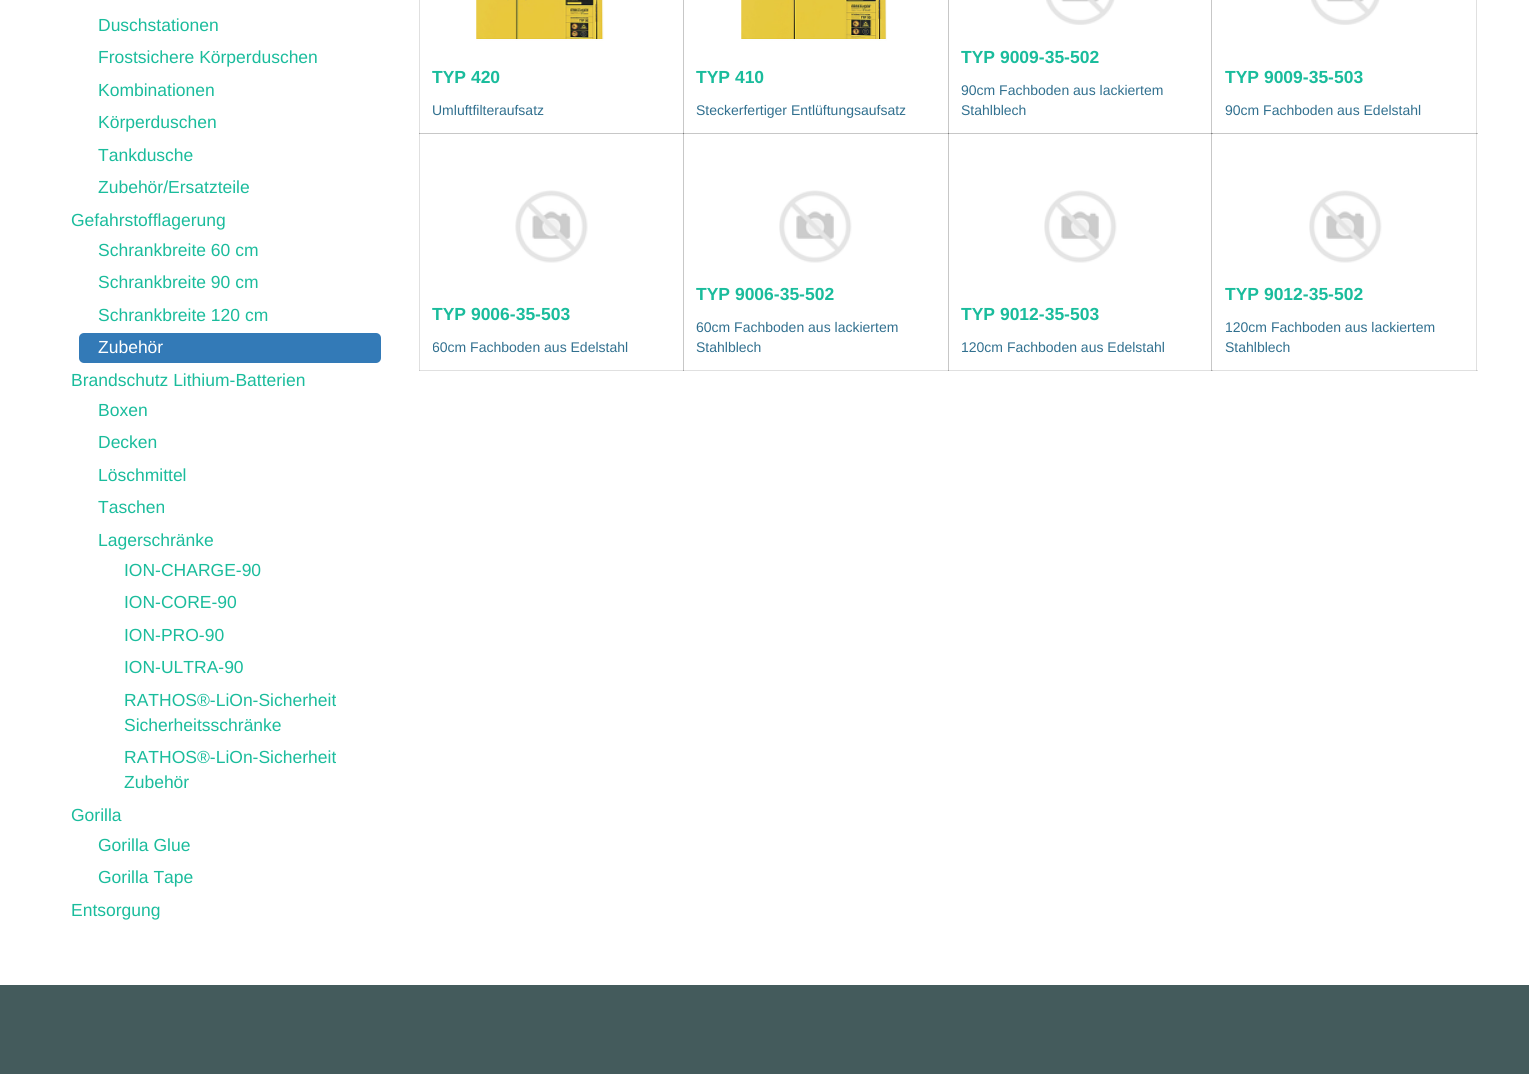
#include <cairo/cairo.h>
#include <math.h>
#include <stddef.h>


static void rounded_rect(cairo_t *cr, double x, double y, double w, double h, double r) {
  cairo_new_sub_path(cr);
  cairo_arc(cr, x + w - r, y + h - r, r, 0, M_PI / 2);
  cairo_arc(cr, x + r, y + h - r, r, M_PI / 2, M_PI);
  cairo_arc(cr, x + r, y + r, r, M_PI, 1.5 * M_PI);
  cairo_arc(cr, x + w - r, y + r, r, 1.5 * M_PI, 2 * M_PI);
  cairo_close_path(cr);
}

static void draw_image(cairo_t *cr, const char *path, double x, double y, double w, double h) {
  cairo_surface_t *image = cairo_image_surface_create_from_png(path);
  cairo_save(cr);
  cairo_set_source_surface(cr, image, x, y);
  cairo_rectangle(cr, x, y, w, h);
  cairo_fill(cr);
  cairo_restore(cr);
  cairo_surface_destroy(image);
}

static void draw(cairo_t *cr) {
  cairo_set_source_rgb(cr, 1, 1, 1);
  cairo_paint(cr);
  cairo_set_source_rgb(cr, 224 / 255.0, 224 / 255.0, 224 / 255.0);
  cairo_rectangle(cr, 419, 0, 1, 371);
  cairo_fill(cr);
  cairo_set_source_rgb(cr, 199 / 255.0, 199 / 255.0, 199 / 255.0);
  cairo_rectangle(cr, 683, 0, 1, 134);
  cairo_fill(cr);
  cairo_rectangle(cr, 948, 0, 1, 134);
  cairo_fill(cr);
  cairo_rectangle(cr, 1211, 0, 1, 134);
  cairo_fill(cr);
  cairo_set_source_rgb(cr, 224 / 255.0, 224 / 255.0, 224 / 255.0);
  cairo_rectangle(cr, 1476, 0, 1, 134);
  cairo_fill(cr);
  cairo_rectangle(cr, 419, 370, 265, 1);
  cairo_fill(cr);
  cairo_set_source_rgb(cr, 199 / 255.0, 199 / 255.0, 199 / 255.0);
  cairo_rectangle(cr, 419, 370, 1, 1);
  cairo_fill(cr);
  cairo_rectangle(cr, 419, 133, 265, 1);
  cairo_fill(cr);
  cairo_set_source_rgb(cr, 163 / 255.0, 163 / 255.0, 163 / 255.0);
  cairo_rectangle(cr, 419, 133, 1, 1);
  cairo_fill(cr);
  cairo_set_source_rgb(cr, 199 / 255.0, 199 / 255.0, 199 / 255.0);
  cairo_rectangle(cr, 683, 133, 1, 238);
  cairo_fill(cr);
  cairo_set_source_rgb(cr, 224 / 255.0, 224 / 255.0, 224 / 255.0);
  cairo_rectangle(cr, 683, 370, 266, 1);
  cairo_fill(cr);
  cairo_set_source_rgb(cr, 163 / 255.0, 163 / 255.0, 163 / 255.0);
  cairo_rectangle(cr, 683, 370, 1, 1);
  cairo_fill(cr);
  cairo_set_source_rgb(cr, 199 / 255.0, 199 / 255.0, 199 / 255.0);
  cairo_rectangle(cr, 683, 133, 266, 1);
  cairo_fill(cr);
  cairo_set_source_rgb(cr, 126 / 255.0, 126 / 255.0, 126 / 255.0);
  cairo_rectangle(cr, 683, 133, 1, 1);
  cairo_fill(cr);
  cairo_set_source_rgb(cr, 199 / 255.0, 199 / 255.0, 199 / 255.0);
  cairo_rectangle(cr, 948, 133, 1, 238);
  cairo_fill(cr);
  cairo_set_source_rgb(cr, 224 / 255.0, 224 / 255.0, 224 / 255.0);
  cairo_rectangle(cr, 948, 370, 265, 1);
  cairo_fill(cr);
  cairo_set_source_rgb(cr, 163 / 255.0, 163 / 255.0, 163 / 255.0);
  cairo_rectangle(cr, 948, 370, 1, 1);
  cairo_fill(cr);
  cairo_set_source_rgb(cr, 199 / 255.0, 199 / 255.0, 199 / 255.0);
  cairo_rectangle(cr, 948, 133, 265, 1);
  cairo_fill(cr);
  cairo_set_source_rgb(cr, 126 / 255.0, 126 / 255.0, 126 / 255.0);
  cairo_rectangle(cr, 948, 133, 1, 1);
  cairo_fill(cr);
  cairo_set_source_rgb(cr, 199 / 255.0, 199 / 255.0, 199 / 255.0);
  cairo_rectangle(cr, 1211, 133, 1, 238);
  cairo_fill(cr);
  cairo_set_source_rgb(cr, 224 / 255.0, 224 / 255.0, 224 / 255.0);
  cairo_rectangle(cr, 1211, 370, 267, 1);
  cairo_fill(cr);
  cairo_set_source_rgb(cr, 199 / 255.0, 199 / 255.0, 199 / 255.0);
  cairo_rectangle(cr, 1211, 370, 2, 1);
  cairo_fill(cr);
  cairo_set_source_rgb(cr, 163 / 255.0, 163 / 255.0, 163 / 255.0);
  cairo_rectangle(cr, 1211, 370, 1, 1);
  cairo_fill(cr);
  cairo_set_source_rgb(cr, 224 / 255.0, 224 / 255.0, 224 / 255.0);
  cairo_rectangle(cr, 1476, 133, 1, 238);
  cairo_fill(cr);
  cairo_set_source_rgb(cr, 199 / 255.0, 199 / 255.0, 199 / 255.0);
  cairo_rectangle(cr, 1476, 370, 1, 1);
  cairo_fill(cr);
  cairo_set_source_rgb(cr, 51 / 255.0, 122 / 255.0, 183 / 255.0);
  rounded_rect(cr, 79, 333, 302, 30, 5);
  cairo_fill(cr);
  draw_image(cr, "images/1.png", 476, 0, 128, 41);
  draw_image(cr, "images/2.png", 741, 0, 146, 41);
  draw_image(cr, "images/3.png", 1046, 0, 69, 25);
  draw_image(cr, "images/3.png", 1311, 0, 69, 25);
  draw_image(cr, "images/4.png", 515, 190, 73, 73);
  draw_image(cr, "images/5.png", 779, 190, 73, 73);
  draw_image(cr, "images/5.png", 1044, 190, 73, 73);
  cairo_set_source_rgb(cr, 199 / 255.0, 199 / 255.0, 199 / 255.0);
  cairo_rectangle(cr, 1211, 133, 267, 1);
  cairo_fill(cr);
  cairo_set_source_rgb(cr, 163 / 255.0, 163 / 255.0, 163 / 255.0);
  cairo_rectangle(cr, 1211, 133, 2, 1);
  cairo_fill(cr);
  cairo_set_source_rgb(cr, 126 / 255.0, 126 / 255.0, 126 / 255.0);
  cairo_rectangle(cr, 1211, 133, 1, 1);
  cairo_fill(cr);
  cairo_set_source_rgb(cr, 163 / 255.0, 163 / 255.0, 163 / 255.0);
  cairo_rectangle(cr, 1476, 133, 1, 1);
  cairo_fill(cr);
  draw_image(cr, "images/5.png", 1309, 190, 73, 73);
  cairo_set_source_rgb(cr, 68 / 255.0, 91 / 255.0, 92 / 255.0);
  cairo_rectangle(cr, 0, 985, 1529, 89);
  cairo_fill(cr);
  cairo_select_font_face(cr, "Liberation Sans", CAIRO_FONT_SLANT_NORMAL, CAIRO_FONT_WEIGHT_NORMAL);
  cairo_set_font_size(cr, 17.5);
  cairo_set_source_rgb(cr, 26 / 255.0, 188 / 255.0, 156 / 255.0);
  cairo_move_to(cr, 98, 31);
  cairo_show_text(cr, "Duschstationen");
  cairo_move_to(cr, 98, 63);
  cairo_show_text(cr, "Frostsichere Körperduschen");
  cairo_move_to(cr, 98, 96);
  cairo_show_text(cr, "Kombinationen");
  cairo_move_to(cr, 98, 128);
  cairo_show_text(cr, "Körperduschen");
  cairo_move_to(cr, 98, 161);
  cairo_show_text(cr, "Tankdusche");
  cairo_move_to(cr, 98, 193);
  cairo_show_text(cr, "Zubehör/Ersatzteile");
  cairo_move_to(cr, 71, 226);
  cairo_show_text(cr, "Gefahrstofflagerung");
  cairo_move_to(cr, 98, 256);
  cairo_show_text(cr, "Schrankbreite 60 cm");
  cairo_move_to(cr, 98, 288);
  cairo_show_text(cr, "Schrankbreite 90 cm");
  cairo_move_to(cr, 98, 321);
  cairo_show_text(cr, "Schrankbreite 120 cm");
  cairo_set_source_rgb(cr, 1, 1, 1);
  cairo_move_to(cr, 98, 353);
  cairo_show_text(cr, "Zubehör");
  cairo_set_source_rgb(cr, 26 / 255.0, 188 / 255.0, 156 / 255.0);
  cairo_move_to(cr, 71, 386);
  cairo_show_text(cr, "Brandschutz Lithium-Batterien");
  cairo_move_to(cr, 98, 416);
  cairo_show_text(cr, "Boxen");
  cairo_move_to(cr, 98, 448);
  cairo_show_text(cr, "Decken");
  cairo_move_to(cr, 98, 481);
  cairo_show_text(cr, "Löschmittel");
  cairo_move_to(cr, 98, 513);
  cairo_show_text(cr, "Taschen");
  cairo_move_to(cr, 98, 546);
  cairo_show_text(cr, "Lagerschränke");
  cairo_move_to(cr, 124, 576);
  cairo_show_text(cr, "ION-CHARGE-90");
  cairo_move_to(cr, 124, 608);
  cairo_show_text(cr, "ION-CORE-90");
  cairo_move_to(cr, 124, 641);
  cairo_show_text(cr, "ION-PRO-90");
  cairo_move_to(cr, 124, 673);
  cairo_show_text(cr, "ION-ULTRA-90");
  cairo_move_to(cr, 124, 706);
  cairo_show_text(cr, "RATHOS®-LiOn-Sicherheit");
  cairo_move_to(cr, 124, 731);
  cairo_show_text(cr, "Sicherheitsschränke");
  cairo_move_to(cr, 124, 763);
  cairo_show_text(cr, "RATHOS®-LiOn-Sicherheit");
  cairo_move_to(cr, 124, 788);
  cairo_show_text(cr, "Zubehör");
  cairo_move_to(cr, 71, 821);
  cairo_show_text(cr, "Gorilla");
  cairo_move_to(cr, 98, 851);
  cairo_show_text(cr, "Gorilla Glue");
  cairo_move_to(cr, 98, 883);
  cairo_show_text(cr, "Gorilla Tape");
  cairo_move_to(cr, 71, 916);
  cairo_show_text(cr, "Entsorgung");
  cairo_select_font_face(cr, "Liberation Sans", CAIRO_FONT_SLANT_NORMAL, CAIRO_FONT_WEIGHT_BOLD);
  cairo_move_to(cr, 432, 83);
  cairo_show_text(cr, "TYP 420");
  cairo_select_font_face(cr, "Liberation Sans", CAIRO_FONT_SLANT_NORMAL, CAIRO_FONT_WEIGHT_NORMAL);
  cairo_set_font_size(cr, 14);
  cairo_set_source_rgb(cr, 49 / 255.0, 112 / 255.0, 143 / 255.0);
  cairo_move_to(cr, 432, 115);
  cairo_show_text(cr, "Umluftfilteraufsatz");
  cairo_select_font_face(cr, "Liberation Sans", CAIRO_FONT_SLANT_NORMAL, CAIRO_FONT_WEIGHT_BOLD);
  cairo_set_font_size(cr, 17.5);
  cairo_set_source_rgb(cr, 26 / 255.0, 188 / 255.0, 156 / 255.0);
  cairo_move_to(cr, 696, 83);
  cairo_show_text(cr, "TYP 410");
  cairo_select_font_face(cr, "Liberation Sans", CAIRO_FONT_SLANT_NORMAL, CAIRO_FONT_WEIGHT_NORMAL);
  cairo_set_font_size(cr, 14);
  cairo_set_source_rgb(cr, 49 / 255.0, 112 / 255.0, 143 / 255.0);
  cairo_move_to(cr, 696, 115);
  cairo_show_text(cr, "Steckerfertiger Entlüftungsaufsatz");
  cairo_select_font_face(cr, "Liberation Sans", CAIRO_FONT_SLANT_NORMAL, CAIRO_FONT_WEIGHT_BOLD);
  cairo_set_font_size(cr, 17.5);
  cairo_set_source_rgb(cr, 26 / 255.0, 188 / 255.0, 156 / 255.0);
  cairo_move_to(cr, 961, 63);
  cairo_show_text(cr, "TYP 9009-35-502");
  cairo_select_font_face(cr, "Liberation Sans", CAIRO_FONT_SLANT_NORMAL, CAIRO_FONT_WEIGHT_NORMAL);
  cairo_set_font_size(cr, 14);
  cairo_set_source_rgb(cr, 49 / 255.0, 112 / 255.0, 143 / 255.0);
  cairo_move_to(cr, 961, 95);
  cairo_show_text(cr, "90cm Fachboden aus lackiertem");
  cairo_move_to(cr, 961, 115);
  cairo_show_text(cr, "Stahlblech");
  cairo_select_font_face(cr, "Liberation Sans", CAIRO_FONT_SLANT_NORMAL, CAIRO_FONT_WEIGHT_BOLD);
  cairo_set_font_size(cr, 17.5);
  cairo_set_source_rgb(cr, 26 / 255.0, 188 / 255.0, 156 / 255.0);
  cairo_move_to(cr, 1225, 83);
  cairo_show_text(cr, "TYP 9009-35-503");
  cairo_select_font_face(cr, "Liberation Sans", CAIRO_FONT_SLANT_NORMAL, CAIRO_FONT_WEIGHT_NORMAL);
  cairo_set_font_size(cr, 14);
  cairo_set_source_rgb(cr, 49 / 255.0, 112 / 255.0, 143 / 255.0);
  cairo_move_to(cr, 1225, 115);
  cairo_show_text(cr, "90cm Fachboden aus Edelstahl");
  cairo_select_font_face(cr, "Liberation Sans", CAIRO_FONT_SLANT_NORMAL, CAIRO_FONT_WEIGHT_BOLD);
  cairo_set_font_size(cr, 17.5);
  cairo_set_source_rgb(cr, 26 / 255.0, 188 / 255.0, 156 / 255.0);
  cairo_move_to(cr, 432, 320);
  cairo_show_text(cr, "TYP 9006-35-503");
  cairo_save(cr);
  cairo_rectangle(cr, 433, 338, 231, 20);
  cairo_clip(cr);
  cairo_select_font_face(cr, "Liberation Sans", CAIRO_FONT_SLANT_NORMAL, CAIRO_FONT_WEIGHT_NORMAL);
  cairo_set_font_size(cr, 14);
  cairo_set_source_rgb(cr, 49 / 255.0, 112 / 255.0, 143 / 255.0);
  cairo_move_to(cr, 432, 352);
  cairo_show_text(cr, "60cm Fachboden aus Edelstahl");
  cairo_restore(cr);
  cairo_move_to(cr, 696, 300);
  cairo_show_text(cr, "TYP 9006-35-502");
  cairo_select_font_face(cr, "Liberation Sans", CAIRO_FONT_SLANT_NORMAL, CAIRO_FONT_WEIGHT_NORMAL);
  cairo_set_font_size(cr, 14);
  cairo_set_source_rgb(cr, 49 / 255.0, 112 / 255.0, 143 / 255.0);
  cairo_move_to(cr, 696, 332);
  cairo_show_text(cr, "60cm Fachboden aus lackiertem");
  cairo_move_to(cr, 696, 352);
  cairo_show_text(cr, "Stahlblech");
  cairo_select_font_face(cr, "Liberation Sans", CAIRO_FONT_SLANT_NORMAL, CAIRO_FONT_WEIGHT_BOLD);
  cairo_set_font_size(cr, 17.5);
  cairo_set_source_rgb(cr, 26 / 255.0, 188 / 255.0, 156 / 255.0);
  cairo_move_to(cr, 961, 320);
  cairo_show_text(cr, "TYP 9012-35-503");
  cairo_select_font_face(cr, "Liberation Sans", CAIRO_FONT_SLANT_NORMAL, CAIRO_FONT_WEIGHT_NORMAL);
  cairo_set_font_size(cr, 14);
  cairo_set_source_rgb(cr, 49 / 255.0, 112 / 255.0, 143 / 255.0);
  cairo_move_to(cr, 961, 352);
  cairo_show_text(cr, "120cm Fachboden aus Edelstahl");
  cairo_select_font_face(cr, "Liberation Sans", CAIRO_FONT_SLANT_NORMAL, CAIRO_FONT_WEIGHT_BOLD);
  cairo_set_font_size(cr, 17.5);
  cairo_set_source_rgb(cr, 26 / 255.0, 188 / 255.0, 156 / 255.0);
  cairo_move_to(cr, 1225, 300);
  cairo_show_text(cr, "TYP 9012-35-502");
  cairo_select_font_face(cr, "Liberation Sans", CAIRO_FONT_SLANT_NORMAL, CAIRO_FONT_WEIGHT_NORMAL);
  cairo_set_font_size(cr, 14);
  cairo_set_source_rgb(cr, 49 / 255.0, 112 / 255.0, 143 / 255.0);
  cairo_move_to(cr, 1225, 332);
  cairo_show_text(cr, "120cm Fachboden aus lackiertem");
  cairo_move_to(cr, 1225, 352);
  cairo_show_text(cr, "Stahlblech");
}

int main(void) {
  cairo_surface_t *surface = cairo_image_surface_create(CAIRO_FORMAT_RGB24, 1529, 1074);
  cairo_t *cr = cairo_create(surface);
  cairo_font_options_t *options = cairo_font_options_create();
  cairo_font_options_set_hint_metrics(options, CAIRO_HINT_METRICS_OFF);
  cairo_font_options_set_hint_style(options, CAIRO_HINT_STYLE_NONE);
  cairo_set_font_options(cr, options);
  cairo_set_miter_limit(cr, 4);
  draw(cr);
  cairo_surface_write_to_png(surface, "out.png");
  cairo_font_options_destroy(options);
  cairo_destroy(cr);
  cairo_surface_destroy(surface);
  return 0;
}
